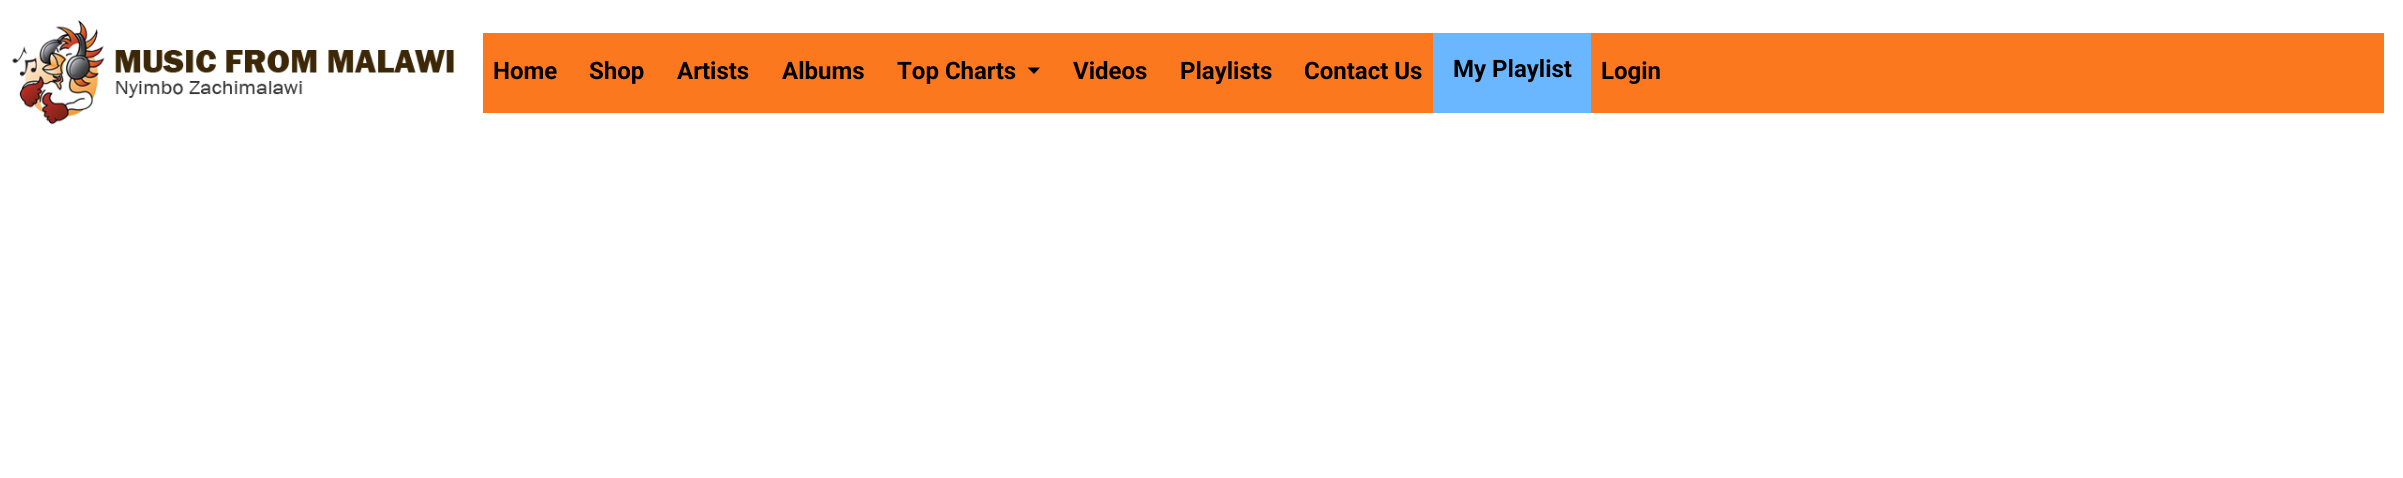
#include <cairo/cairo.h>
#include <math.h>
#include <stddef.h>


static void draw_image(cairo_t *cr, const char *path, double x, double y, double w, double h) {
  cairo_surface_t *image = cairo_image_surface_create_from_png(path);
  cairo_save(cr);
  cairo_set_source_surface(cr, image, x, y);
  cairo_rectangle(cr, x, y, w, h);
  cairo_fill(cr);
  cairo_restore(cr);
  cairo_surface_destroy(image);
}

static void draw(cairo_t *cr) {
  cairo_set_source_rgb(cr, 1, 1, 1);
  cairo_paint(cr);
  draw_image(cr, "images/1.png", 12, 20, 443, 105);
  cairo_set_source_rgb(cr, 252 / 255.0, 120 / 255.0, 30 / 255.0);
  cairo_rectangle(cr, 483, 33, 1901, 80);
  cairo_fill(cr);
  cairo_set_source_rgb(cr, 0, 0, 0);
  cairo_new_path(cr);
  cairo_move_to(cr, 1027.5, 67.5);
  cairo_line_to(cr, 1040, 67.5);
  cairo_line_to(cr, 1034, 74);
  cairo_close_path(cr);
  cairo_fill(cr);
  cairo_set_source_rgb(cr, 106 / 255.0, 182 / 255.0, 1);
  cairo_rectangle(cr, 1433, 33, 158, 80);
  cairo_fill(cr);
  cairo_select_font_face(cr, "Roboto", CAIRO_FONT_SLANT_NORMAL, CAIRO_FONT_WEIGHT_BOLD);
  cairo_set_font_size(cr, 24);
  cairo_set_source_rgb(cr, 0, 0, 0);
  cairo_move_to(cr, 493, 79);
  cairo_show_text(cr, "Home");
  cairo_move_to(cr, 589, 79);
  cairo_show_text(cr, "Shop");
  cairo_move_to(cr, 677, 79);
  cairo_show_text(cr, "Artists");
  cairo_move_to(cr, 782, 79);
  cairo_show_text(cr, "Albums");
  cairo_move_to(cr, 897, 79);
  cairo_show_text(cr, "Top Charts");
  cairo_move_to(cr, 1073, 79);
  cairo_show_text(cr, "Videos");
  cairo_move_to(cr, 1180, 79);
  cairo_show_text(cr, "Playlists");
  cairo_move_to(cr, 1304, 79);
  cairo_show_text(cr, "Contact Us");
  cairo_move_to(cr, 1453, 77);
  cairo_show_text(cr, "My Playlist");
  cairo_move_to(cr, 1601, 79);
  cairo_show_text(cr, "Login");
}

int main(void) {
  cairo_surface_t *surface = cairo_image_surface_create(CAIRO_FORMAT_RGB24, 2403, 478);
  cairo_t *cr = cairo_create(surface);
  cairo_font_options_t *options = cairo_font_options_create();
  cairo_font_options_set_hint_metrics(options, CAIRO_HINT_METRICS_OFF);
  cairo_font_options_set_hint_style(options, CAIRO_HINT_STYLE_NONE);
  cairo_set_font_options(cr, options);
  cairo_set_miter_limit(cr, 4);
  draw(cr);
  cairo_surface_write_to_png(surface, "out.png");
  cairo_font_options_destroy(options);
  cairo_destroy(cr);
  cairo_surface_destroy(surface);
  return 0;
}
